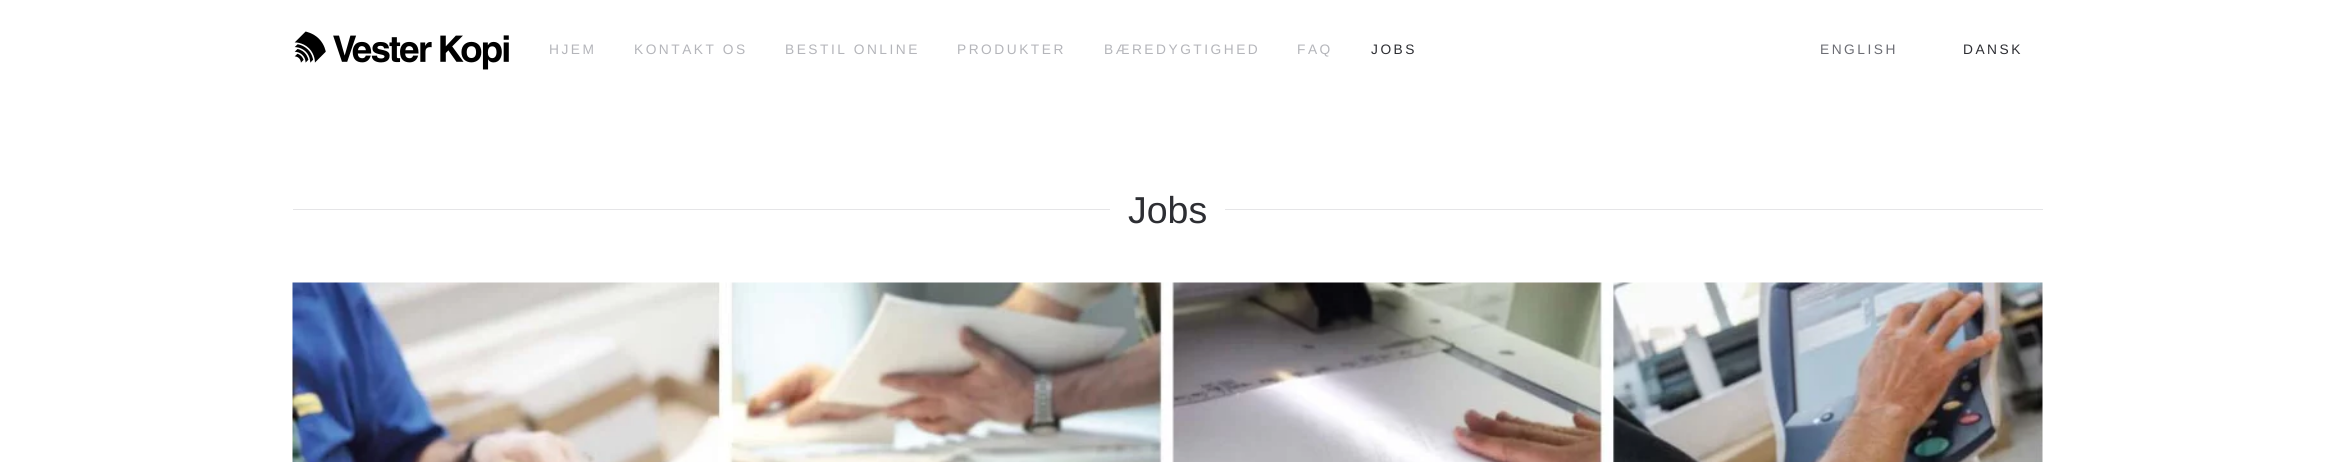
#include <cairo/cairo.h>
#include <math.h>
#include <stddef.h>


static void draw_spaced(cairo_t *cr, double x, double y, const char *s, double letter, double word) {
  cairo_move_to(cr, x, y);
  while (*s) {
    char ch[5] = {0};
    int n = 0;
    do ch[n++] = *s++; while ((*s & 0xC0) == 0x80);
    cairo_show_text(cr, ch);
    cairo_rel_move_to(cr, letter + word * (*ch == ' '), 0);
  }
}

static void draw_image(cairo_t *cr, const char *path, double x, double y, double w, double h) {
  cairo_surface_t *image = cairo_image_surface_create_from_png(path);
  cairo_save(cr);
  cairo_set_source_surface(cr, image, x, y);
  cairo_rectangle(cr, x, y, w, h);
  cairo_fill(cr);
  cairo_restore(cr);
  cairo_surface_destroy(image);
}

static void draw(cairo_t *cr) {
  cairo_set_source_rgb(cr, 1, 1, 1);
  cairo_paint(cr);
  draw_image(cr, "images/1.png", 294, 31, 215, 39);
  cairo_set_source_rgb(cr, 229 / 255.0, 229 / 255.0, 231 / 255.0);
  cairo_rectangle(cr, 293, 209, 817, 1);
  cairo_fill(cr);
  cairo_rectangle(cr, 1225, 209, 818, 1);
  cairo_fill(cr);
  draw_image(cr, "images/2.png", 292, 282, 1751, 180);
  cairo_select_font_face(cr, "Liberation Sans", CAIRO_FONT_SLANT_NORMAL, CAIRO_FONT_WEIGHT_NORMAL);
  cairo_set_font_size(cr, 13.75);
  cairo_set_source_rgb(cr, 180 / 255.0, 181 / 255.0, 186 / 255.0);
  draw_spaced(cr, 549, 54, "HJEM", 2.5, 0);
  draw_spaced(cr, 634, 54, "KONTAKT OS", 2.5, 0);
  draw_spaced(cr, 785, 54, "BESTIL ONLINE", 2.5, 0);
  draw_spaced(cr, 957, 54, "PRODUKTER", 2.5, 0);
  draw_spaced(cr, 1104, 54, "BÆREDYGTIGHED", 2.5, 0);
  draw_spaced(cr, 1297, 54, "FAQ", 2.5, 0);
  cairo_set_source_rgb(cr, 45 / 255.0, 46 / 255.0, 51 / 255.0);
  draw_spaced(cr, 1371, 54, "JOBS", 2.5, 0);
  cairo_set_source_rgb(cr, 108 / 255.0, 109 / 255.0, 116 / 255.0);
  draw_spaced(cr, 1820, 54, "ENGLISH", 2.5, 0);
  cairo_set_source_rgb(cr, 45 / 255.0, 46 / 255.0, 51 / 255.0);
  draw_spaced(cr, 1963, 54, "DANSK", 2.5, 0);
  cairo_set_font_size(cr, 37.5);
  cairo_move_to(cr, 1128, 223);
  cairo_show_text(cr, "Jobs");
}

int main(void) {
  cairo_surface_t *surface = cairo_image_surface_create(CAIRO_FORMAT_RGB24, 2335, 462);
  cairo_t *cr = cairo_create(surface);
  cairo_font_options_t *options = cairo_font_options_create();
  cairo_font_options_set_hint_metrics(options, CAIRO_HINT_METRICS_OFF);
  cairo_font_options_set_hint_style(options, CAIRO_HINT_STYLE_NONE);
  cairo_set_font_options(cr, options);
  cairo_set_miter_limit(cr, 4);
  draw(cr);
  cairo_surface_write_to_png(surface, "out.png");
  cairo_font_options_destroy(options);
  cairo_destroy(cr);
  cairo_surface_destroy(surface);
  return 0;
}
